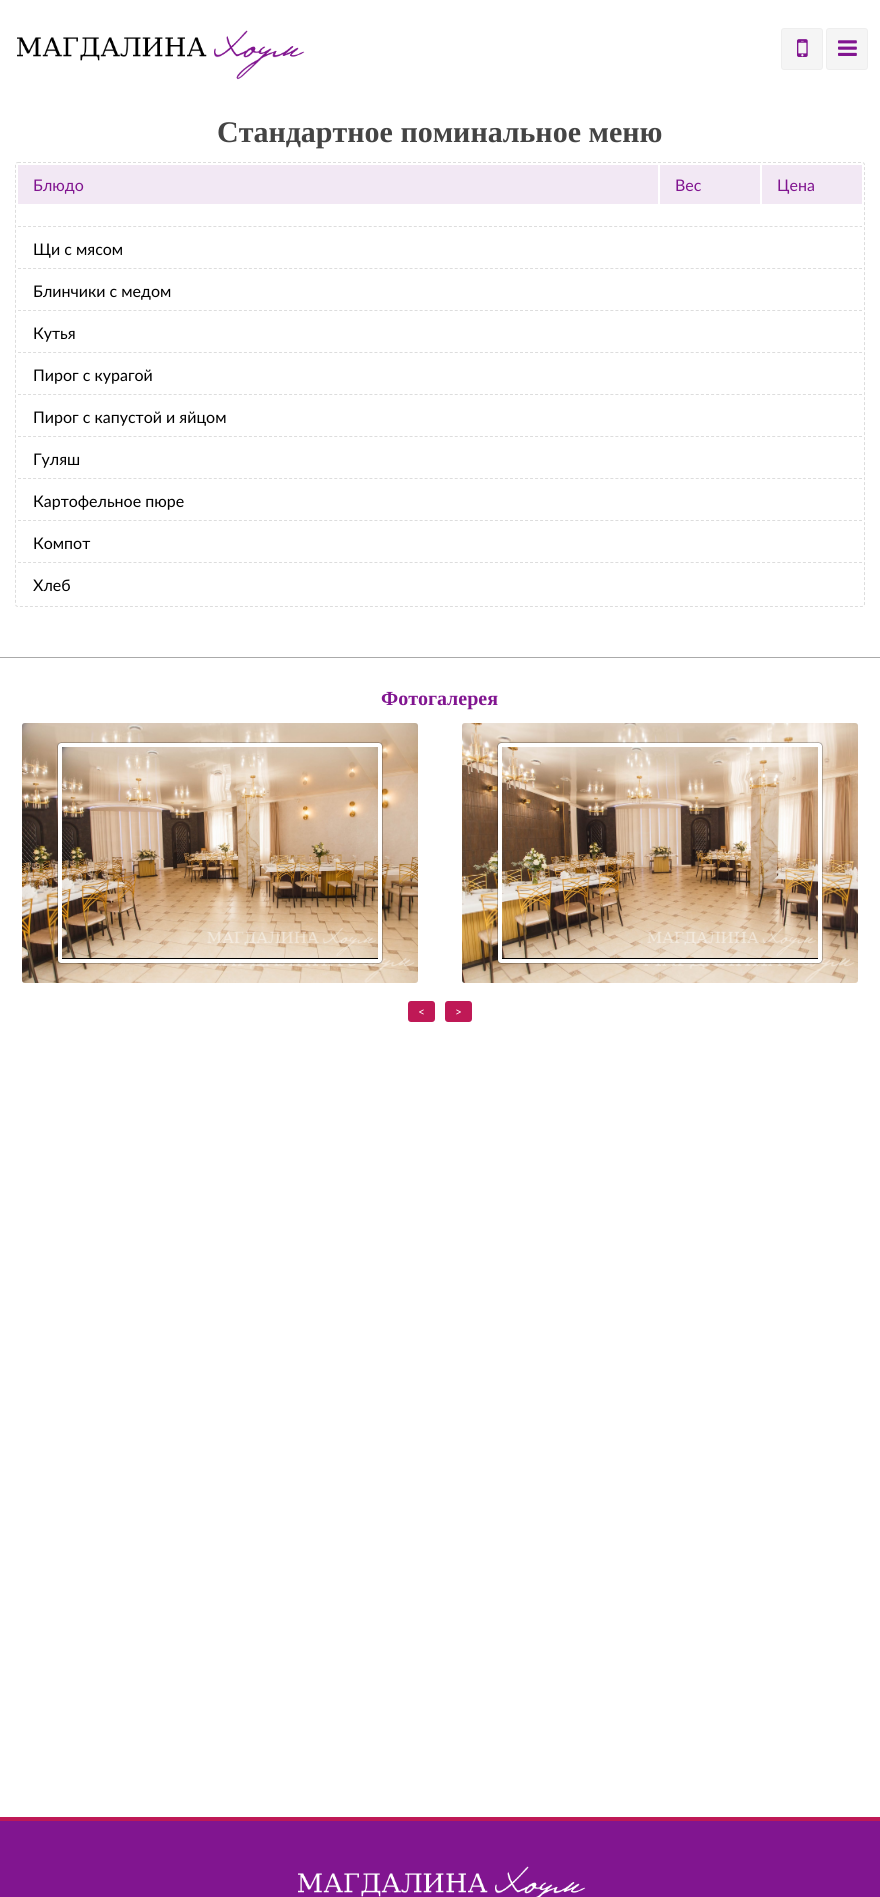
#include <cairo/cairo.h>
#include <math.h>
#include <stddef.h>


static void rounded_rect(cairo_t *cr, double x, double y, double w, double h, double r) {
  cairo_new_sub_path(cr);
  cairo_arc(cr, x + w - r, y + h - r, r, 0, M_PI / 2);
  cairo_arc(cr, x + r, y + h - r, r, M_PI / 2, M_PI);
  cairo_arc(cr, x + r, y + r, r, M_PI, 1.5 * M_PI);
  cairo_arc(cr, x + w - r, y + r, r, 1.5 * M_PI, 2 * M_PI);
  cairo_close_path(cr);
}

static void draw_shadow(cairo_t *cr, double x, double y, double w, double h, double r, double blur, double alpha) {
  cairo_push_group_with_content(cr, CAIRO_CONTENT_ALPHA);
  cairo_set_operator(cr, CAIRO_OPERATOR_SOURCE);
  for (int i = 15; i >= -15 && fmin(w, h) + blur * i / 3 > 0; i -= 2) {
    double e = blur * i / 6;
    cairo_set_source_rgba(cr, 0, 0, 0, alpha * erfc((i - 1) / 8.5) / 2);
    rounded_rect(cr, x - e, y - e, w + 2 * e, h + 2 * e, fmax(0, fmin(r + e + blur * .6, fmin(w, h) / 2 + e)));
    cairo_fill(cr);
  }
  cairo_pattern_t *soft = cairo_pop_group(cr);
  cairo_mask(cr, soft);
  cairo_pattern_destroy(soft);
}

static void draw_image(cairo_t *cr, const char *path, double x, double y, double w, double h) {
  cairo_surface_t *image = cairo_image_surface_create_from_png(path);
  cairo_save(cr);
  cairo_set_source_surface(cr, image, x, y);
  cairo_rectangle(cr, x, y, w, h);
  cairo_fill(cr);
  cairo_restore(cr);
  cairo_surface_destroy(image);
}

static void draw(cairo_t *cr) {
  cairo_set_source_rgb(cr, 1, 1, 1);
  cairo_paint(cr);
  draw_image(cr, "images/1.png", 17, 30, 288, 50);
  cairo_set_source_rgb(cr, 245 / 255.0, 245 / 255.0, 245 / 255.0);
  rounded_rect(cr, 781.5, 28.5, 41, 41, 2.5);
  cairo_fill_preserve(cr);
  cairo_set_source_rgb(cr, 238 / 255.0, 238 / 255.0, 238 / 255.0);
  cairo_set_line_width(cr, 1);
  cairo_stroke(cr);
  draw_image(cr, "images/2.png", 797, 39, 11, 18);
  cairo_set_source_rgb(cr, 245 / 255.0, 245 / 255.0, 245 / 255.0);
  rounded_rect(cr, 826.5, 28.5, 41, 41, 2.5);
  cairo_fill_preserve(cr);
  cairo_set_source_rgb(cr, 238 / 255.0, 238 / 255.0, 238 / 255.0);
  cairo_stroke(cr);
  draw_image(cr, "images/3.png", 838, 40, 19, 16);
  cairo_set_source_rgb(cr, 170 / 255.0, 170 / 255.0, 170 / 255.0);
  cairo_rectangle(cr, 0, 657, 880, 1);
  cairo_fill(cr);
  cairo_new_path(cr);
  cairo_move_to(cr, 18, 162.5);
  cairo_line_to(cr, 862, 162.5);
  cairo_curve_to(cr, 863.5, 162.5, 864.5, 163.5, 864.5, 165);
  cairo_line_to(cr, 864.5, 604);
  cairo_curve_to(cr, 864.5, 605.5, 863.5, 606.5, 862, 606.5);
  cairo_line_to(cr, 18, 606.5);
  cairo_curve_to(cr, 16.5, 606.5, 15.5, 605.5, 15.5, 604);
  cairo_line_to(cr, 15.5, 165);
  cairo_curve_to(cr, 15.5, 163.5, 16.5, 162.5, 18, 162.5);
  cairo_close_path(cr);
  cairo_set_source_rgb(cr, 221 / 255.0, 221 / 255.0, 221 / 255.0);
  cairo_set_dash(cr, (double[]){3, 2}, 2, 0);
  cairo_stroke(cr);
  cairo_set_source_rgb(cr, 242 / 255.0, 232 / 255.0, 244 / 255.0);
  cairo_rectangle(cr, 18, 165, 640, 39);
  cairo_fill(cr);
  cairo_rectangle(cr, 660, 165, 100, 39);
  cairo_fill(cr);
  cairo_rectangle(cr, 762, 165, 100, 39);
  cairo_fill(cr);
  cairo_new_path(cr);
  cairo_move_to(cr, 18, 226.5);
  cairo_line_to(cr, 862, 226.5);
  cairo_set_source_rgb(cr, 221 / 255.0, 221 / 255.0, 221 / 255.0);
  cairo_set_dash(cr, (double[]){3, 2.01}, 2, 0);
  cairo_stroke(cr);
  cairo_new_path(cr);
  cairo_move_to(cr, 18, 268.5);
  cairo_line_to(cr, 658, 268.5);
  cairo_set_dash(cr, (double[]){3, 2.02}, 2, 0);
  cairo_stroke(cr);
  cairo_new_path(cr);
  cairo_move_to(cr, 660, 268.5);
  cairo_line_to(cr, 760, 268.5);
  cairo_set_dash(cr, (double[]){3, 2.11}, 2, 0);
  cairo_stroke(cr);
  cairo_new_path(cr);
  cairo_move_to(cr, 762, 268.5);
  cairo_line_to(cr, 862, 268.5);
  cairo_stroke(cr);
  cairo_new_path(cr);
  cairo_move_to(cr, 18, 310.5);
  cairo_line_to(cr, 658, 310.5);
  cairo_set_dash(cr, (double[]){3, 2.02}, 2, 0);
  cairo_stroke(cr);
  cairo_new_path(cr);
  cairo_move_to(cr, 660, 310.5);
  cairo_line_to(cr, 760, 310.5);
  cairo_set_dash(cr, (double[]){3, 2.11}, 2, 0);
  cairo_stroke(cr);
  cairo_new_path(cr);
  cairo_move_to(cr, 762, 310.5);
  cairo_line_to(cr, 862, 310.5);
  cairo_stroke(cr);
  cairo_new_path(cr);
  cairo_move_to(cr, 18, 352.5);
  cairo_line_to(cr, 658, 352.5);
  cairo_set_dash(cr, (double[]){3, 2.02}, 2, 0);
  cairo_stroke(cr);
  cairo_new_path(cr);
  cairo_move_to(cr, 660, 352.5);
  cairo_line_to(cr, 760, 352.5);
  cairo_set_dash(cr, (double[]){3, 2.11}, 2, 0);
  cairo_stroke(cr);
  cairo_new_path(cr);
  cairo_move_to(cr, 762, 352.5);
  cairo_line_to(cr, 862, 352.5);
  cairo_stroke(cr);
  cairo_new_path(cr);
  cairo_move_to(cr, 18, 394.5);
  cairo_line_to(cr, 658, 394.5);
  cairo_set_dash(cr, (double[]){3, 2.02}, 2, 0);
  cairo_stroke(cr);
  cairo_new_path(cr);
  cairo_move_to(cr, 660, 394.5);
  cairo_line_to(cr, 760, 394.5);
  cairo_set_dash(cr, (double[]){3, 2.11}, 2, 0);
  cairo_stroke(cr);
  cairo_new_path(cr);
  cairo_move_to(cr, 762, 394.5);
  cairo_line_to(cr, 862, 394.5);
  cairo_stroke(cr);
  cairo_new_path(cr);
  cairo_move_to(cr, 18, 436.5);
  cairo_line_to(cr, 658, 436.5);
  cairo_set_dash(cr, (double[]){3, 2.02}, 2, 0);
  cairo_stroke(cr);
  cairo_new_path(cr);
  cairo_move_to(cr, 660, 436.5);
  cairo_line_to(cr, 760, 436.5);
  cairo_set_dash(cr, (double[]){3, 2.11}, 2, 0);
  cairo_stroke(cr);
  cairo_new_path(cr);
  cairo_move_to(cr, 762, 436.5);
  cairo_line_to(cr, 862, 436.5);
  cairo_stroke(cr);
  cairo_new_path(cr);
  cairo_move_to(cr, 18, 478.5);
  cairo_line_to(cr, 658, 478.5);
  cairo_set_dash(cr, (double[]){3, 2.02}, 2, 0);
  cairo_stroke(cr);
  cairo_new_path(cr);
  cairo_move_to(cr, 660, 478.5);
  cairo_line_to(cr, 760, 478.5);
  cairo_set_dash(cr, (double[]){3, 2.11}, 2, 0);
  cairo_stroke(cr);
  cairo_new_path(cr);
  cairo_move_to(cr, 762, 478.5);
  cairo_line_to(cr, 862, 478.5);
  cairo_stroke(cr);
  cairo_new_path(cr);
  cairo_move_to(cr, 18, 520.5);
  cairo_line_to(cr, 658, 520.5);
  cairo_set_dash(cr, (double[]){3, 2.02}, 2, 0);
  cairo_stroke(cr);
  cairo_new_path(cr);
  cairo_move_to(cr, 660, 520.5);
  cairo_line_to(cr, 760, 520.5);
  cairo_set_dash(cr, (double[]){3, 2.11}, 2, 0);
  cairo_stroke(cr);
  cairo_new_path(cr);
  cairo_move_to(cr, 762, 520.5);
  cairo_line_to(cr, 862, 520.5);
  cairo_stroke(cr);
  cairo_new_path(cr);
  cairo_move_to(cr, 18, 562.5);
  cairo_line_to(cr, 658, 562.5);
  cairo_set_dash(cr, (double[]){3, 2.02}, 2, 0);
  cairo_stroke(cr);
  cairo_new_path(cr);
  cairo_move_to(cr, 660, 562.5);
  cairo_line_to(cr, 760, 562.5);
  cairo_set_dash(cr, (double[]){3, 2.11}, 2, 0);
  cairo_stroke(cr);
  cairo_new_path(cr);
  cairo_move_to(cr, 762, 562.5);
  cairo_line_to(cr, 862, 562.5);
  cairo_stroke(cr);
  draw_image(cr, "images/4.png", 22, 723, 396, 260);
  cairo_set_source_rgb(cr, 0, 0, 0);
  draw_shadow(cr, 58, 743, 324, 220, 3, 0.5, 1);
  draw_image(cr, "images/5.png", 62, 747, 316, 211);
  rounded_rect(cr, 60, 745, 320, 216, 1);
  cairo_set_source_rgb(cr, 1, 1, 1);
  cairo_set_line_width(cr, 4);
  cairo_set_dash(cr, NULL, 0, 0);
  cairo_stroke(cr);
  draw_image(cr, "images/6.png", 462, 723, 396, 260);
  cairo_set_source_rgb(cr, 0, 0, 0);
  draw_shadow(cr, 498, 743, 324, 220, 3, 0.5, 1);
  draw_image(cr, "images/7.png", 502, 747, 316, 211);
  rounded_rect(cr, 500, 745, 320, 216, 1);
  cairo_set_source_rgb(cr, 1, 1, 1);
  cairo_stroke(cr);
  cairo_set_source_rgb(cr, 191 / 255.0, 25 / 255.0, 86 / 255.0);
  rounded_rect(cr, 408, 1001, 27, 21, 3);
  cairo_fill(cr);
  rounded_rect(cr, 445, 1001, 27, 21, 3);
  cairo_fill(cr);
  cairo_set_source_rgb(cr, 129 / 255.0, 21 / 255.0, 144 / 255.0);
  cairo_rectangle(cr, 0, 1821, 880, 76);
  cairo_fill(cr);
  cairo_set_source_rgb(cr, 191 / 255.0, 25 / 255.0, 86 / 255.0);
  cairo_rectangle(cr, 0, 1817, 880, 4);
  cairo_fill(cr);
  draw_image(cr, "images/8.png", 298, 1866, 288, 31);
  cairo_select_font_face(cr, "Liberation Serif", CAIRO_FONT_SLANT_NORMAL, CAIRO_FONT_WEIGHT_BOLD);
  cairo_set_font_size(cr, 30);
  cairo_set_source_rgb(cr, 68 / 255.0, 68 / 255.0, 68 / 255.0);
  cairo_move_to(cr, 217, 142);
  cairo_show_text(cr, "Стандартное поминальное меню");
  cairo_select_font_face(cr, "Lato", CAIRO_FONT_SLANT_NORMAL, CAIRO_FONT_WEIGHT_NORMAL);
  cairo_set_font_size(cr, 16);
  cairo_set_source_rgb(cr, 129 / 255.0, 21 / 255.0, 144 / 255.0);
  cairo_move_to(cr, 33, 191);
  cairo_show_text(cr, "Блюдо");
  cairo_move_to(cr, 675, 191);
  cairo_show_text(cr, "Вес");
  cairo_move_to(cr, 777, 191);
  cairo_show_text(cr, "Цена");
  cairo_set_source_rgb(cr, 0, 0, 0);
  cairo_move_to(cr, 33, 255);
  cairo_show_text(cr, "Щи c мясом");
  cairo_move_to(cr, 33, 297);
  cairo_show_text(cr, "Блинчики с медом");
  cairo_move_to(cr, 33, 339);
  cairo_show_text(cr, "Кутья");
  cairo_move_to(cr, 33, 381);
  cairo_show_text(cr, "Пирог с курагой");
  cairo_move_to(cr, 33, 423);
  cairo_show_text(cr, "Пирог с капустой и яйцом");
  cairo_move_to(cr, 33, 465);
  cairo_show_text(cr, "Гуляш");
  cairo_move_to(cr, 33, 507);
  cairo_show_text(cr, "Картофельное пюре");
  cairo_move_to(cr, 33, 549);
  cairo_show_text(cr, "Компот");
  cairo_move_to(cr, 33, 591);
  cairo_show_text(cr, "Хлеб");
  cairo_select_font_face(cr, "Liberation Serif", CAIRO_FONT_SLANT_NORMAL, CAIRO_FONT_WEIGHT_BOLD);
  cairo_set_font_size(cr, 20);
  cairo_set_source_rgb(cr, 129 / 255.0, 21 / 255.0, 144 / 255.0);
  cairo_move_to(cr, 381, 705);
  cairo_show_text(cr, "Фотогалерея");
  cairo_select_font_face(cr, "Lato", CAIRO_FONT_SLANT_NORMAL, CAIRO_FONT_WEIGHT_NORMAL);
  cairo_set_font_size(cr, 12);
  cairo_set_source_rgb(cr, 1, 1, 1);
  cairo_move_to(cr, 418, 1016);
  cairo_show_text(cr, "<");
  cairo_move_to(cr, 455, 1016);
  cairo_show_text(cr, ">");
}

int main(void) {
  cairo_surface_t *surface = cairo_image_surface_create(CAIRO_FORMAT_RGB24, 880, 1897);
  cairo_t *cr = cairo_create(surface);
  cairo_font_options_t *options = cairo_font_options_create();
  cairo_font_options_set_hint_metrics(options, CAIRO_HINT_METRICS_OFF);
  cairo_font_options_set_hint_style(options, CAIRO_HINT_STYLE_NONE);
  cairo_set_font_options(cr, options);
  cairo_set_miter_limit(cr, 4);
  draw(cr);
  cairo_surface_write_to_png(surface, "out.png");
  cairo_font_options_destroy(options);
  cairo_destroy(cr);
  cairo_surface_destroy(surface);
  return 0;
}
